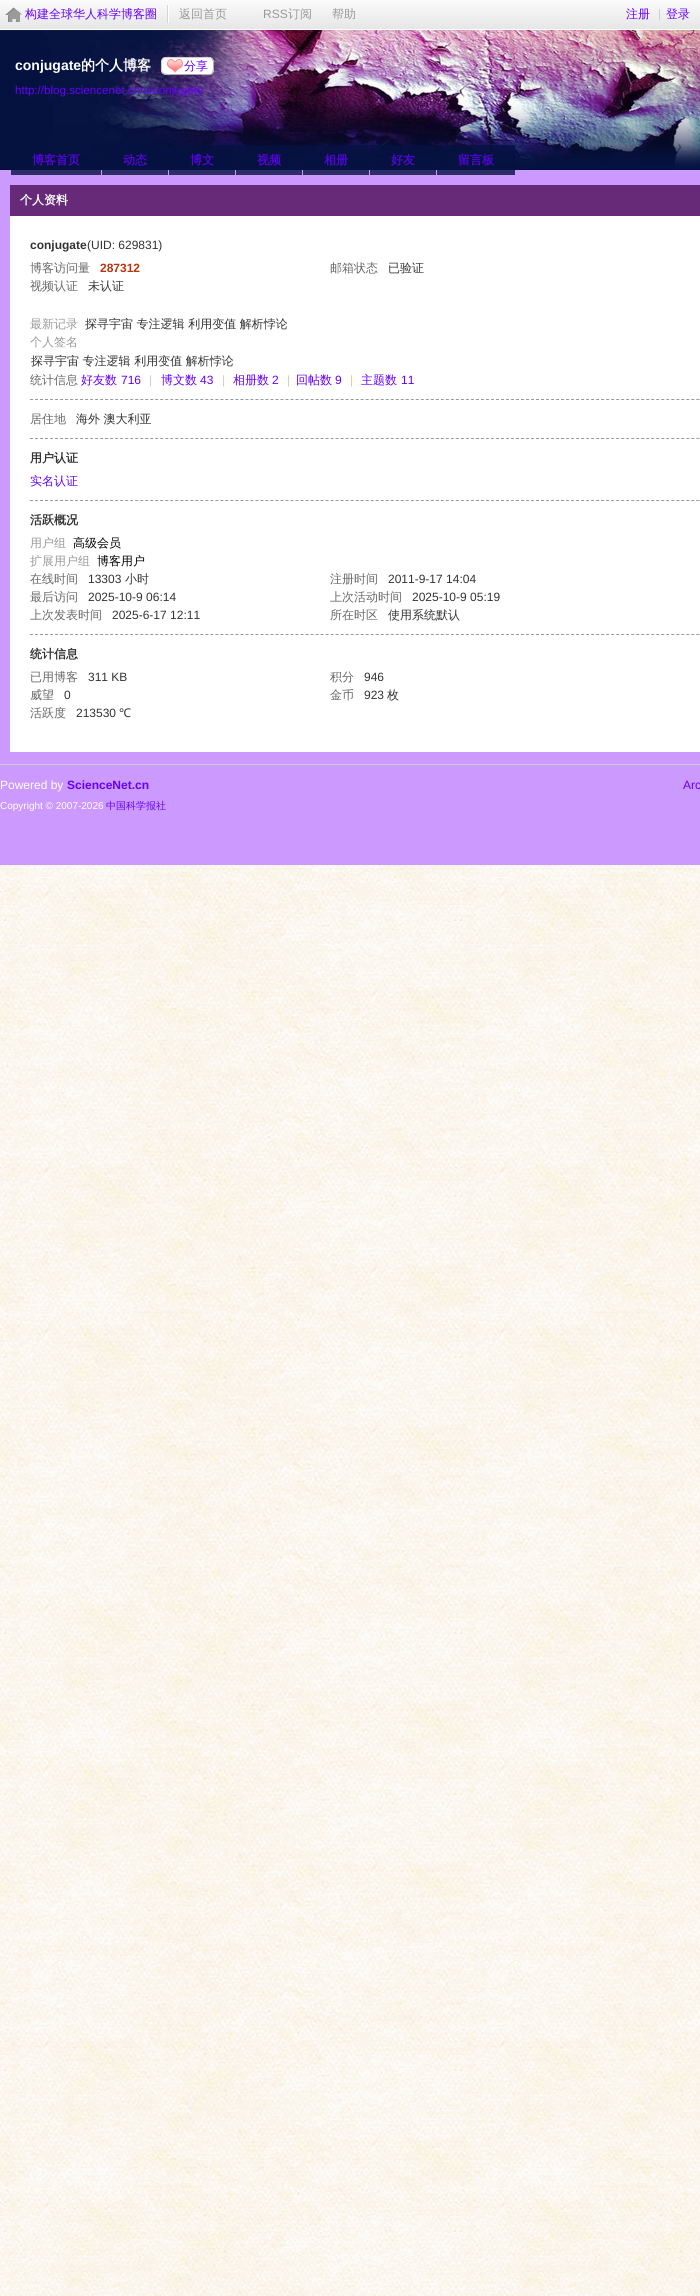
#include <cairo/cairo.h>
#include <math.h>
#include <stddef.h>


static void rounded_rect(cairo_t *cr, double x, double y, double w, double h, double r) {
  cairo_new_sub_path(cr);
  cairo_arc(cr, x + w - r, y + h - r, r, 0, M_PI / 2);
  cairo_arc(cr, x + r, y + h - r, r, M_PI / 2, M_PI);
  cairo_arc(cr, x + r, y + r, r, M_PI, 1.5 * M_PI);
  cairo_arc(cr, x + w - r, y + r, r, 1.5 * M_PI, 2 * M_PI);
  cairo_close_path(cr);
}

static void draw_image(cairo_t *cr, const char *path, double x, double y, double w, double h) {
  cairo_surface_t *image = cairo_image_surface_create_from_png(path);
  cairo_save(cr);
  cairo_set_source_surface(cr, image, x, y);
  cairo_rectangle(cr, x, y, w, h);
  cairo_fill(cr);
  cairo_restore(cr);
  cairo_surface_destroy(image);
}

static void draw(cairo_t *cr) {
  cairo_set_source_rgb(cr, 1, 1, 1);
  cairo_paint(cr);
  draw_image(cr, "images/1.png", 0, 865, 700, 1431);
  cairo_set_source_rgb(cr, 204 / 255.0, 153 / 255.0, 1);
  cairo_rectangle(cr, 0, 170, 700, 695);
  cairo_fill(cr);
  draw_image(cr, "images/2.png", 0, 0, 700, 30);
  draw_image(cr, "images/3.png", 5, 7, 17, 15);
  cairo_set_source_rgb(cr, 1, 1, 1);
  cairo_rectangle(cr, 168, 5, 1, 18);
  cairo_fill(cr);
  cairo_set_source_rgb(cr, 213 / 255.0, 213 / 255.0, 213 / 255.0);
  cairo_rectangle(cr, 167, 5, 1, 18);
  cairo_fill(cr);
  draw_image(cr, "images/4.png", 0, 30, 700, 140);
  cairo_set_source_rgb(cr, 1, 1, 1);
  rounded_rect(cr, 161, 57, 53, 18, 5);
  cairo_fill(cr);
  draw_image(cr, "images/5.png", 167, 59, 16, 14);
  cairo_new_path(cr);
  cairo_move_to(cr, 212, 59);
  cairo_curve_to(cr, 214, 61, 213.5, 64, 213.5, 67);
  cairo_curve_to(cr, 213.5, 76, 210.5, 74.5, 202, 74.5);
  cairo_line_to(cr, 173, 74.5);
  cairo_curve_to(cr, 171, 74.5, 165.5, 75.5, 163, 73);
  cairo_set_source_rgb(cr, 169 / 255.0, 169 / 255.0, 169 / 255.0);
  cairo_set_line_width(cr, 1);
  cairo_stroke(cr);
  cairo_new_path(cr);
  cairo_move_to(cr, 163, 73);
  cairo_curve_to(cr, 161, 71, 161.5, 68, 161.5, 65);
  cairo_curve_to(cr, 161.5, 56, 164.5, 57.5, 173, 57.5);
  cairo_line_to(cr, 202, 57.5);
  cairo_curve_to(cr, 204, 57.5, 209.5, 56.5, 212, 59);
  cairo_set_source_rgb(cr, 204 / 255.0, 204 / 255.0, 204 / 255.0);
  cairo_stroke(cr);
  cairo_set_source_rgba(cr, 5 / 255.0, 18 / 255.0, 65 / 255.0, 0.8);
  cairo_rectangle(cr, 11, 170, 90, 5);
  cairo_fill(cr);
  cairo_rectangle(cr, 102, 145, 66, 30);
  cairo_fill(cr);
  cairo_rectangle(cr, 169, 145, 66, 30);
  cairo_fill(cr);
  cairo_rectangle(cr, 236, 145, 66, 30);
  cairo_fill(cr);
  cairo_rectangle(cr, 303, 145, 66, 30);
  cairo_fill(cr);
  cairo_rectangle(cr, 370, 145, 66, 30);
  cairo_fill(cr);
  cairo_rectangle(cr, 437, 145, 78, 30);
  cairo_fill(cr);
  cairo_set_source_rgb(cr, 1, 1, 1);
  cairo_rectangle(cr, 10, 216, 690, 536);
  cairo_fill(cr);
  cairo_set_source_rgb(cr, 102 / 255.0, 42 / 255.0, 120 / 255.0);
  cairo_rectangle(cr, 10, 185, 690, 31);
  cairo_fill(cr);
  cairo_new_path(cr);
  cairo_move_to(cr, 30, 438.5);
  cairo_line_to(cr, 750, 438.5);
  cairo_set_source_rgb(cr, 153 / 255.0, 153 / 255.0, 153 / 255.0);
  cairo_set_dash(cr, (double[]){3, 2.01}, 2, 0);
  cairo_stroke(cr);
  cairo_new_path(cr);
  cairo_move_to(cr, 30, 399.5);
  cairo_line_to(cr, 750, 399.5);
  cairo_stroke(cr);
  cairo_new_path(cr);
  cairo_move_to(cr, 30, 500.5);
  cairo_line_to(cr, 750, 500.5);
  cairo_stroke(cr);
  cairo_new_path(cr);
  cairo_move_to(cr, 30, 634.5);
  cairo_line_to(cr, 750, 634.5);
  cairo_stroke(cr);
  cairo_set_source_rgb(cr, 205 / 255.0, 205 / 255.0, 205 / 255.0);
  cairo_rectangle(cr, 0, 764, 700, 1);
  cairo_fill(cr);
  cairo_select_font_face(cr, "WenQuanYi Zen Hei Medium", CAIRO_FONT_SLANT_NORMAL, CAIRO_FONT_WEIGHT_NORMAL);
  cairo_set_font_size(cr, 12);
  cairo_set_source_rgb(cr, 102 / 255.0, 0, 1);
  cairo_move_to(cr, 25, 18);
  cairo_show_text(cr, "构建全球华人科学博客圈");
  cairo_set_source_rgb(cr, 153 / 255.0, 153 / 255.0, 153 / 255.0);
  cairo_move_to(cr, 179, 18);
  cairo_show_text(cr, "返回首页");
  cairo_select_font_face(cr, "Liberation Sans", CAIRO_FONT_SLANT_NORMAL, CAIRO_FONT_WEIGHT_NORMAL);
  cairo_move_to(cr, 263, 18);
  cairo_show_text(cr, "RSS");
  cairo_select_font_face(cr, "WenQuanYi Zen Hei Medium", CAIRO_FONT_SLANT_NORMAL, CAIRO_FONT_WEIGHT_NORMAL);
  cairo_move_to(cr, 288, 18);
  cairo_show_text(cr, "订阅");
  cairo_move_to(cr, 332, 18);
  cairo_show_text(cr, "帮助");
  cairo_set_source_rgb(cr, 102 / 255.0, 0, 1);
  cairo_move_to(cr, 626, 18);
  cairo_show_text(cr, "注册");
  cairo_select_font_face(cr, "Liberation Sans", CAIRO_FONT_SLANT_NORMAL, CAIRO_FONT_WEIGHT_NORMAL);
  cairo_set_source_rgb(cr, 204 / 255.0, 204 / 255.0, 204 / 255.0);
  cairo_move_to(cr, 658, 18);
  cairo_show_text(cr, "|");
  cairo_select_font_face(cr, "WenQuanYi Zen Hei Medium", CAIRO_FONT_SLANT_NORMAL, CAIRO_FONT_WEIGHT_NORMAL);
  cairo_set_source_rgb(cr, 102 / 255.0, 0, 1);
  cairo_move_to(cr, 666, 18);
  cairo_show_text(cr, "登录");
  cairo_select_font_face(cr, "Liberation Sans", CAIRO_FONT_SLANT_NORMAL, CAIRO_FONT_WEIGHT_BOLD);
  cairo_set_font_size(cr, 14);
  cairo_set_source_rgb(cr, 1, 1, 1);
  cairo_move_to(cr, 15, 70);
  cairo_show_text(cr, "conjugate");
  cairo_select_font_face(cr, "WenQuanYi Zen Hei", CAIRO_FONT_SLANT_NORMAL, CAIRO_FONT_WEIGHT_BOLD);
  cairo_move_to(cr, 81, 70);
  cairo_show_text(cr, "的个人博客");
  cairo_select_font_face(cr, "WenQuanYi Zen Hei Medium", CAIRO_FONT_SLANT_NORMAL, CAIRO_FONT_WEIGHT_NORMAL);
  cairo_set_font_size(cr, 12);
  cairo_set_source_rgb(cr, 102 / 255.0, 0, 1);
  cairo_move_to(cr, 184, 70);
  cairo_show_text(cr, "分享");
  cairo_select_font_face(cr, "Liberation Sans", CAIRO_FONT_SLANT_NORMAL, CAIRO_FONT_WEIGHT_NORMAL);
  cairo_set_font_size(cr, 11.6);
  cairo_move_to(cr, 15, 94);
  cairo_show_text(cr, "http://blog.sciencenet.cn/u/conjugate");
  cairo_select_font_face(cr, "WenQuanYi Zen Hei", CAIRO_FONT_SLANT_NORMAL, CAIRO_FONT_WEIGHT_BOLD);
  cairo_set_font_size(cr, 12);
  cairo_set_source_rgb(cr, 83 / 255.0, 4 / 255.0, 217 / 255.0);
  cairo_move_to(cr, 32, 164);
  cairo_show_text(cr, "博客首页");
  cairo_move_to(cr, 123, 164);
  cairo_show_text(cr, "动态");
  cairo_move_to(cr, 190, 164);
  cairo_show_text(cr, "博文");
  cairo_move_to(cr, 257, 164);
  cairo_show_text(cr, "视频");
  cairo_move_to(cr, 324, 164);
  cairo_show_text(cr, "相册");
  cairo_move_to(cr, 391, 164);
  cairo_show_text(cr, "好友");
  cairo_move_to(cr, 458, 164);
  cairo_show_text(cr, "留言板");
  cairo_set_source_rgb(cr, 1, 1, 1);
  cairo_move_to(cr, 20, 204);
  cairo_show_text(cr, "个人资料");
  cairo_select_font_face(cr, "Liberation Sans", CAIRO_FONT_SLANT_NORMAL, CAIRO_FONT_WEIGHT_BOLD);
  cairo_set_source_rgb(cr, 51 / 255.0, 51 / 255.0, 51 / 255.0);
  cairo_move_to(cr, 30, 249);
  cairo_show_text(cr, "conjugate");
  cairo_select_font_face(cr, "Liberation Sans", CAIRO_FONT_SLANT_NORMAL, CAIRO_FONT_WEIGHT_NORMAL);
  cairo_move_to(cr, 87, 249);
  cairo_show_text(cr, "(UID: 629831)");
  cairo_select_font_face(cr, "WenQuanYi Zen Hei Medium", CAIRO_FONT_SLANT_NORMAL, CAIRO_FONT_WEIGHT_NORMAL);
  cairo_set_source_rgb(cr, 102 / 255.0, 102 / 255.0, 102 / 255.0);
  cairo_move_to(cr, 30, 272);
  cairo_show_text(cr, "博客访问量");
  cairo_select_font_face(cr, "Liberation Sans", CAIRO_FONT_SLANT_NORMAL, CAIRO_FONT_WEIGHT_BOLD);
  cairo_set_source_rgb(cr, 186 / 255.0, 53 / 255.0, 15 / 255.0);
  cairo_move_to(cr, 100, 272);
  cairo_show_text(cr, "287312");
  cairo_select_font_face(cr, "WenQuanYi Zen Hei Medium", CAIRO_FONT_SLANT_NORMAL, CAIRO_FONT_WEIGHT_NORMAL);
  cairo_set_source_rgb(cr, 102 / 255.0, 102 / 255.0, 102 / 255.0);
  cairo_move_to(cr, 330, 272);
  cairo_show_text(cr, "邮箱状态");
  cairo_set_source_rgb(cr, 51 / 255.0, 51 / 255.0, 51 / 255.0);
  cairo_move_to(cr, 388, 272);
  cairo_show_text(cr, "已验证");
  cairo_set_source_rgb(cr, 102 / 255.0, 102 / 255.0, 102 / 255.0);
  cairo_move_to(cr, 30, 290);
  cairo_show_text(cr, "视频认证");
  cairo_set_source_rgb(cr, 51 / 255.0, 51 / 255.0, 51 / 255.0);
  cairo_move_to(cr, 88, 290);
  cairo_show_text(cr, "未认证");
  cairo_set_source_rgb(cr, 153 / 255.0, 153 / 255.0, 153 / 255.0);
  cairo_move_to(cr, 30, 328);
  cairo_show_text(cr, "最新记录");
  cairo_set_source_rgb(cr, 51 / 255.0, 51 / 255.0, 51 / 255.0);
  cairo_move_to(cr, 85, 328);
  cairo_show_text(cr, "探寻宇宙 专注逻辑 利用变值 解析悖论");
  cairo_set_source_rgb(cr, 153 / 255.0, 153 / 255.0, 153 / 255.0);
  cairo_move_to(cr, 30, 346);
  cairo_show_text(cr, "个人签名");
  cairo_set_source_rgb(cr, 51 / 255.0, 51 / 255.0, 51 / 255.0);
  cairo_move_to(cr, 31, 365);
  cairo_show_text(cr, "探寻宇宙 专注逻辑 利用变值 解析悖论");
  cairo_set_source_rgb(cr, 102 / 255.0, 102 / 255.0, 102 / 255.0);
  cairo_move_to(cr, 30, 384);
  cairo_show_text(cr, "统计信息");
  cairo_set_source_rgb(cr, 102 / 255.0, 0, 1);
  cairo_move_to(cr, 81, 384);
  cairo_show_text(cr, "好友数");
  cairo_select_font_face(cr, "Liberation Sans", CAIRO_FONT_SLANT_NORMAL, CAIRO_FONT_WEIGHT_NORMAL);
  cairo_move_to(cr, 121, 384);
  cairo_show_text(cr, "716");
  cairo_set_source_rgb(cr, 204 / 255.0, 204 / 255.0, 204 / 255.0);
  cairo_move_to(cr, 149, 384);
  cairo_show_text(cr, "|");
  cairo_select_font_face(cr, "WenQuanYi Zen Hei Medium", CAIRO_FONT_SLANT_NORMAL, CAIRO_FONT_WEIGHT_NORMAL);
  cairo_set_source_rgb(cr, 102 / 255.0, 0, 1);
  cairo_move_to(cr, 161, 384);
  cairo_show_text(cr, "博文数");
  cairo_select_font_face(cr, "Liberation Sans", CAIRO_FONT_SLANT_NORMAL, CAIRO_FONT_WEIGHT_NORMAL);
  cairo_move_to(cr, 200, 384);
  cairo_show_text(cr, "43");
  cairo_set_source_rgb(cr, 204 / 255.0, 204 / 255.0, 204 / 255.0);
  cairo_move_to(cr, 222, 384);
  cairo_show_text(cr, "|");
  cairo_select_font_face(cr, "WenQuanYi Zen Hei Medium", CAIRO_FONT_SLANT_NORMAL, CAIRO_FONT_WEIGHT_NORMAL);
  cairo_set_source_rgb(cr, 102 / 255.0, 0, 1);
  cairo_move_to(cr, 233, 384);
  cairo_show_text(cr, "相册数");
  cairo_select_font_face(cr, "Liberation Sans", CAIRO_FONT_SLANT_NORMAL, CAIRO_FONT_WEIGHT_NORMAL);
  cairo_move_to(cr, 272, 384);
  cairo_show_text(cr, "2");
  cairo_set_source_rgb(cr, 204 / 255.0, 204 / 255.0, 204 / 255.0);
  cairo_move_to(cr, 287, 384);
  cairo_show_text(cr, "|");
  cairo_select_font_face(cr, "WenQuanYi Zen Hei Medium", CAIRO_FONT_SLANT_NORMAL, CAIRO_FONT_WEIGHT_NORMAL);
  cairo_set_source_rgb(cr, 102 / 255.0, 0, 1);
  cairo_move_to(cr, 296, 384);
  cairo_show_text(cr, "回帖数");
  cairo_select_font_face(cr, "Liberation Sans", CAIRO_FONT_SLANT_NORMAL, CAIRO_FONT_WEIGHT_NORMAL);
  cairo_move_to(cr, 335, 384);
  cairo_show_text(cr, "9");
  cairo_set_source_rgb(cr, 204 / 255.0, 204 / 255.0, 204 / 255.0);
  cairo_move_to(cr, 350, 384);
  cairo_show_text(cr, "|");
  cairo_select_font_face(cr, "WenQuanYi Zen Hei Medium", CAIRO_FONT_SLANT_NORMAL, CAIRO_FONT_WEIGHT_NORMAL);
  cairo_set_source_rgb(cr, 102 / 255.0, 0, 1);
  cairo_move_to(cr, 361, 384);
  cairo_show_text(cr, "主题数");
  cairo_select_font_face(cr, "Liberation Sans", CAIRO_FONT_SLANT_NORMAL, CAIRO_FONT_WEIGHT_NORMAL);
  cairo_move_to(cr, 401, 384);
  cairo_show_text(cr, "11");
  cairo_select_font_face(cr, "WenQuanYi Zen Hei Medium", CAIRO_FONT_SLANT_NORMAL, CAIRO_FONT_WEIGHT_NORMAL);
  cairo_set_source_rgb(cr, 102 / 255.0, 102 / 255.0, 102 / 255.0);
  cairo_move_to(cr, 30, 423);
  cairo_show_text(cr, "居住地");
  cairo_set_source_rgb(cr, 51 / 255.0, 51 / 255.0, 51 / 255.0);
  cairo_move_to(cr, 76, 423);
  cairo_show_text(cr, "海外 澳大利亚");
  cairo_select_font_face(cr, "WenQuanYi Zen Hei", CAIRO_FONT_SLANT_NORMAL, CAIRO_FONT_WEIGHT_BOLD);
  cairo_move_to(cr, 30, 462);
  cairo_show_text(cr, "用户认证");
  cairo_select_font_face(cr, "WenQuanYi Zen Hei Medium", CAIRO_FONT_SLANT_NORMAL, CAIRO_FONT_WEIGHT_NORMAL);
  cairo_set_source_rgb(cr, 102 / 255.0, 0, 1);
  cairo_move_to(cr, 30, 485);
  cairo_show_text(cr, "实名认证");
  cairo_select_font_face(cr, "WenQuanYi Zen Hei", CAIRO_FONT_SLANT_NORMAL, CAIRO_FONT_WEIGHT_BOLD);
  cairo_set_source_rgb(cr, 51 / 255.0, 51 / 255.0, 51 / 255.0);
  cairo_move_to(cr, 30, 524);
  cairo_show_text(cr, "活跃概况");
  cairo_select_font_face(cr, "WenQuanYi Zen Hei Medium", CAIRO_FONT_SLANT_NORMAL, CAIRO_FONT_WEIGHT_NORMAL);
  cairo_set_source_rgb(cr, 153 / 255.0, 153 / 255.0, 153 / 255.0);
  cairo_move_to(cr, 30, 547);
  cairo_show_text(cr, "用户组");
  cairo_set_source_rgb(cr, 0, 0, 0);
  cairo_move_to(cr, 73, 547);
  cairo_show_text(cr, "高级会员");
  cairo_set_source_rgb(cr, 153 / 255.0, 153 / 255.0, 153 / 255.0);
  cairo_move_to(cr, 30, 565);
  cairo_show_text(cr, "扩展用户组");
  cairo_set_source_rgb(cr, 0, 0, 0);
  cairo_move_to(cr, 97, 565);
  cairo_show_text(cr, "博客用户");
  cairo_set_source_rgb(cr, 102 / 255.0, 102 / 255.0, 102 / 255.0);
  cairo_move_to(cr, 30, 583);
  cairo_show_text(cr, "在线时间");
  cairo_select_font_face(cr, "Liberation Sans", CAIRO_FONT_SLANT_NORMAL, CAIRO_FONT_WEIGHT_NORMAL);
  cairo_set_source_rgb(cr, 51 / 255.0, 51 / 255.0, 51 / 255.0);
  cairo_move_to(cr, 88, 583);
  cairo_show_text(cr, "13303");
  cairo_select_font_face(cr, "WenQuanYi Zen Hei Medium", CAIRO_FONT_SLANT_NORMAL, CAIRO_FONT_WEIGHT_NORMAL);
  cairo_move_to(cr, 125, 583);
  cairo_show_text(cr, "小时");
  cairo_set_source_rgb(cr, 102 / 255.0, 102 / 255.0, 102 / 255.0);
  cairo_move_to(cr, 330, 583);
  cairo_show_text(cr, "注册时间");
  cairo_select_font_face(cr, "Liberation Sans", CAIRO_FONT_SLANT_NORMAL, CAIRO_FONT_WEIGHT_NORMAL);
  cairo_set_source_rgb(cr, 51 / 255.0, 51 / 255.0, 51 / 255.0);
  cairo_move_to(cr, 388, 583);
  cairo_show_text(cr, "2011-9-17 14:04");
  cairo_select_font_face(cr, "WenQuanYi Zen Hei Medium", CAIRO_FONT_SLANT_NORMAL, CAIRO_FONT_WEIGHT_NORMAL);
  cairo_set_source_rgb(cr, 102 / 255.0, 102 / 255.0, 102 / 255.0);
  cairo_move_to(cr, 30, 601);
  cairo_show_text(cr, "最后访问");
  cairo_select_font_face(cr, "Liberation Sans", CAIRO_FONT_SLANT_NORMAL, CAIRO_FONT_WEIGHT_NORMAL);
  cairo_set_source_rgb(cr, 51 / 255.0, 51 / 255.0, 51 / 255.0);
  cairo_move_to(cr, 88, 601);
  cairo_show_text(cr, "2025-10-9 06:14");
  cairo_select_font_face(cr, "WenQuanYi Zen Hei Medium", CAIRO_FONT_SLANT_NORMAL, CAIRO_FONT_WEIGHT_NORMAL);
  cairo_set_source_rgb(cr, 102 / 255.0, 102 / 255.0, 102 / 255.0);
  cairo_move_to(cr, 330, 601);
  cairo_show_text(cr, "上次活动时间");
  cairo_select_font_face(cr, "Liberation Sans", CAIRO_FONT_SLANT_NORMAL, CAIRO_FONT_WEIGHT_NORMAL);
  cairo_set_source_rgb(cr, 51 / 255.0, 51 / 255.0, 51 / 255.0);
  cairo_move_to(cr, 412, 601);
  cairo_show_text(cr, "2025-10-9 05:19");
  cairo_select_font_face(cr, "WenQuanYi Zen Hei Medium", CAIRO_FONT_SLANT_NORMAL, CAIRO_FONT_WEIGHT_NORMAL);
  cairo_set_source_rgb(cr, 102 / 255.0, 102 / 255.0, 102 / 255.0);
  cairo_move_to(cr, 30, 619);
  cairo_show_text(cr, "上次发表时间");
  cairo_select_font_face(cr, "Liberation Sans", CAIRO_FONT_SLANT_NORMAL, CAIRO_FONT_WEIGHT_NORMAL);
  cairo_set_source_rgb(cr, 51 / 255.0, 51 / 255.0, 51 / 255.0);
  cairo_move_to(cr, 112, 619);
  cairo_show_text(cr, "2025-6-17 12:11");
  cairo_select_font_face(cr, "WenQuanYi Zen Hei Medium", CAIRO_FONT_SLANT_NORMAL, CAIRO_FONT_WEIGHT_NORMAL);
  cairo_set_source_rgb(cr, 102 / 255.0, 102 / 255.0, 102 / 255.0);
  cairo_move_to(cr, 330, 619);
  cairo_show_text(cr, "所在时区");
  cairo_set_source_rgb(cr, 51 / 255.0, 51 / 255.0, 51 / 255.0);
  cairo_move_to(cr, 388, 619);
  cairo_show_text(cr, "使用系统默认");
  cairo_select_font_face(cr, "WenQuanYi Zen Hei", CAIRO_FONT_SLANT_NORMAL, CAIRO_FONT_WEIGHT_BOLD);
  cairo_move_to(cr, 30, 658);
  cairo_show_text(cr, "统计信息");
  cairo_select_font_face(cr, "WenQuanYi Zen Hei Medium", CAIRO_FONT_SLANT_NORMAL, CAIRO_FONT_WEIGHT_NORMAL);
  cairo_set_source_rgb(cr, 102 / 255.0, 102 / 255.0, 102 / 255.0);
  cairo_move_to(cr, 30, 681);
  cairo_show_text(cr, "已用博客");
  cairo_select_font_face(cr, "Liberation Sans", CAIRO_FONT_SLANT_NORMAL, CAIRO_FONT_WEIGHT_NORMAL);
  cairo_set_source_rgb(cr, 51 / 255.0, 51 / 255.0, 51 / 255.0);
  cairo_move_to(cr, 88, 681);
  cairo_show_text(cr, "311 KB");
  cairo_select_font_face(cr, "WenQuanYi Zen Hei Medium", CAIRO_FONT_SLANT_NORMAL, CAIRO_FONT_WEIGHT_NORMAL);
  cairo_set_source_rgb(cr, 102 / 255.0, 102 / 255.0, 102 / 255.0);
  cairo_move_to(cr, 330, 681);
  cairo_show_text(cr, "积分");
  cairo_select_font_face(cr, "Liberation Sans", CAIRO_FONT_SLANT_NORMAL, CAIRO_FONT_WEIGHT_NORMAL);
  cairo_set_source_rgb(cr, 51 / 255.0, 51 / 255.0, 51 / 255.0);
  cairo_move_to(cr, 364, 681);
  cairo_show_text(cr, "946");
  cairo_select_font_face(cr, "WenQuanYi Zen Hei Medium", CAIRO_FONT_SLANT_NORMAL, CAIRO_FONT_WEIGHT_NORMAL);
  cairo_set_source_rgb(cr, 102 / 255.0, 102 / 255.0, 102 / 255.0);
  cairo_move_to(cr, 30, 699);
  cairo_show_text(cr, "威望");
  cairo_select_font_face(cr, "Liberation Sans", CAIRO_FONT_SLANT_NORMAL, CAIRO_FONT_WEIGHT_NORMAL);
  cairo_set_source_rgb(cr, 51 / 255.0, 51 / 255.0, 51 / 255.0);
  cairo_move_to(cr, 64, 699);
  cairo_show_text(cr, "0");
  cairo_select_font_face(cr, "WenQuanYi Zen Hei Medium", CAIRO_FONT_SLANT_NORMAL, CAIRO_FONT_WEIGHT_NORMAL);
  cairo_set_source_rgb(cr, 102 / 255.0, 102 / 255.0, 102 / 255.0);
  cairo_move_to(cr, 330, 699);
  cairo_show_text(cr, "金币");
  cairo_select_font_face(cr, "Liberation Sans", CAIRO_FONT_SLANT_NORMAL, CAIRO_FONT_WEIGHT_NORMAL);
  cairo_set_source_rgb(cr, 51 / 255.0, 51 / 255.0, 51 / 255.0);
  cairo_move_to(cr, 364, 699);
  cairo_show_text(cr, "923");
  cairo_select_font_face(cr, "WenQuanYi Zen Hei Medium", CAIRO_FONT_SLANT_NORMAL, CAIRO_FONT_WEIGHT_NORMAL);
  cairo_move_to(cr, 387, 699);
  cairo_show_text(cr, "枚");
  cairo_set_source_rgb(cr, 102 / 255.0, 102 / 255.0, 102 / 255.0);
  cairo_move_to(cr, 30, 717);
  cairo_show_text(cr, "活跃度");
  cairo_select_font_face(cr, "Liberation Sans", CAIRO_FONT_SLANT_NORMAL, CAIRO_FONT_WEIGHT_NORMAL);
  cairo_set_source_rgb(cr, 51 / 255.0, 51 / 255.0, 51 / 255.0);
  cairo_move_to(cr, 76, 717);
  cairo_show_text(cr, "213530");
  cairo_select_font_face(cr, "Noto Sans", CAIRO_FONT_SLANT_NORMAL, CAIRO_FONT_WEIGHT_NORMAL);
  cairo_move_to(cr, 119, 717);
  cairo_show_text(cr, "℃");
  cairo_select_font_face(cr, "Liberation Sans", CAIRO_FONT_SLANT_NORMAL, CAIRO_FONT_WEIGHT_NORMAL);
  cairo_set_source_rgb(cr, 1, 1, 1);
  cairo_move_to(cr, 0, 789);
  cairo_show_text(cr, "Powered by");
  cairo_select_font_face(cr, "Liberation Sans", CAIRO_FONT_SLANT_NORMAL, CAIRO_FONT_WEIGHT_BOLD);
  cairo_set_source_rgb(cr, 102 / 255.0, 0, 1);
  cairo_move_to(cr, 67, 789);
  cairo_show_text(cr, "ScienceNet.cn");
  cairo_select_font_face(cr, "Liberation Sans", CAIRO_FONT_SLANT_NORMAL, CAIRO_FONT_WEIGHT_NORMAL);
  cairo_set_font_size(cr, 10);
  cairo_set_source_rgb(cr, 1, 1, 1);
  cairo_move_to(cr, 0, 809);
  cairo_show_text(cr, "Copyright © 2007-2026");
  cairo_select_font_face(cr, "WenQuanYi Zen Hei Medium", CAIRO_FONT_SLANT_NORMAL, CAIRO_FONT_WEIGHT_NORMAL);
  cairo_set_source_rgb(cr, 102 / 255.0, 0, 1);
  cairo_move_to(cr, 106, 809);
  cairo_show_text(cr, "中国科学报社");
  cairo_select_font_face(cr, "Liberation Sans", CAIRO_FONT_SLANT_NORMAL, CAIRO_FONT_WEIGHT_NORMAL);
  cairo_set_font_size(cr, 12);
  cairo_move_to(cr, 683, 789);
  cairo_show_text(cr, "Arc");
}

int main(void) {
  cairo_surface_t *surface = cairo_image_surface_create(CAIRO_FORMAT_RGB24, 700, 2296);
  cairo_t *cr = cairo_create(surface);
  cairo_font_options_t *options = cairo_font_options_create();
  cairo_font_options_set_hint_metrics(options, CAIRO_HINT_METRICS_OFF);
  cairo_font_options_set_hint_style(options, CAIRO_HINT_STYLE_NONE);
  cairo_set_font_options(cr, options);
  cairo_set_miter_limit(cr, 4);
  draw(cr);
  cairo_surface_write_to_png(surface, "out.png");
  cairo_font_options_destroy(options);
  cairo_destroy(cr);
  cairo_surface_destroy(surface);
  return 0;
}
